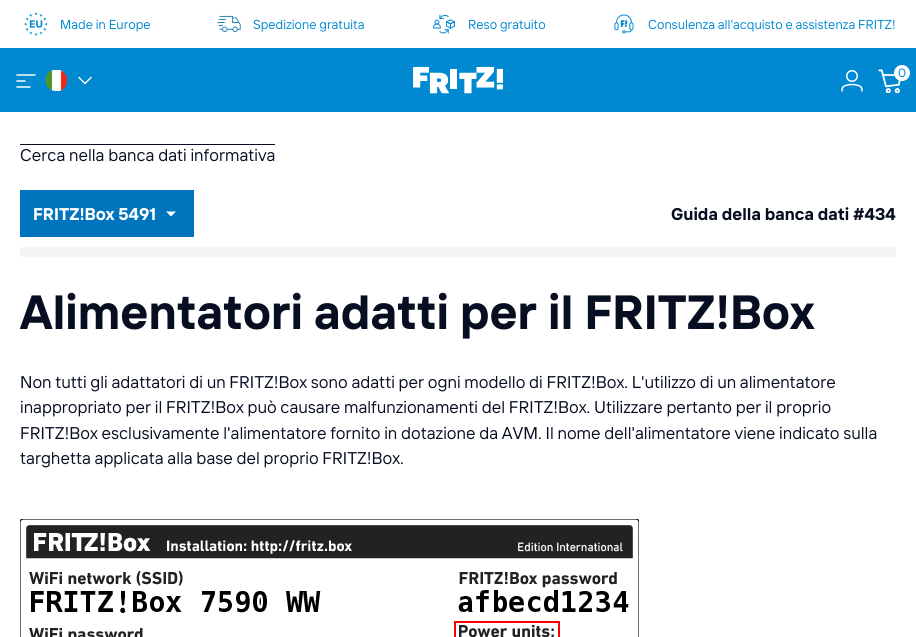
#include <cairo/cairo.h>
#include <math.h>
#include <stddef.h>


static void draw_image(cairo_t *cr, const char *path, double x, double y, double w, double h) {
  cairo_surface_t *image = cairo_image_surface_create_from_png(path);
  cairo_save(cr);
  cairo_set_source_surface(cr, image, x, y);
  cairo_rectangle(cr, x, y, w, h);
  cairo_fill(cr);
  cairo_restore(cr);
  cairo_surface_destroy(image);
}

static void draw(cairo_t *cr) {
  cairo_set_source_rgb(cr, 1, 1, 1);
  cairo_paint(cr);
  draw_image(cr, "images/1.png", 24, 12, 24, 24);
  draw_image(cr, "images/2.png", 217, 15, 24, 18);
  draw_image(cr, "images/3.png", 432, 14, 23, 20);
  draw_image(cr, "images/4.png", 614, 14, 20, 20);
  cairo_set_source_rgb(cr, 0, 137 / 255.0, 209 / 255.0);
  cairo_rectangle(cr, 0, 48, 916, 64);
  cairo_fill(cr);
  cairo_new_path(cr);
  cairo_move_to(cr, 17, 75);
  cairo_line_to(cr, 35, 75);
  cairo_move_to(cr, 17, 81);
  cairo_line_to(cr, 25, 81);
  cairo_move_to(cr, 17, 87);
  cairo_line_to(cr, 30, 87);
  cairo_set_source_rgb(cr, 1, 1, 1);
  cairo_set_line_width(cr, 1.5);
  cairo_set_line_cap(cr, CAIRO_LINE_CAP_ROUND);
  cairo_stroke(cr);
  cairo_save(cr);
  cairo_rectangle(cr, 46, 70, 21, 21);
  cairo_clip(cr);
  cairo_new_path(cr);
  cairo_move_to(cr, 50, 89);
  cairo_line_to(cr, 50, 71.5);
  cairo_curve_to(cr, 54, 69, 59.5, 69, 63, 71.5);
  cairo_line_to(cr, 63, 89);
  cairo_curve_to(cr, 59.5, 92, 54, 92, 50, 89);
  cairo_close_path(cr);
  cairo_fill(cr);
  cairo_restore(cr);
  cairo_set_source_rgb(cr, 243 / 255.0, 38 / 255.0, 20 / 255.0);
  cairo_new_path(cr);
  cairo_move_to(cr, 61, 90.5);
  cairo_line_to(cr, 61, 70.5);
  cairo_curve_to(cr, 69, 74.5, 69, 86.5, 61, 90.5);
  cairo_close_path(cr);
  cairo_fill(cr);
  cairo_save(cr);
  cairo_rectangle(cr, 46, 70, 21, 21);
  cairo_clip(cr);
  cairo_set_source_rgb(cr, 82 / 255.0, 148 / 255.0, 38 / 255.0);
  cairo_new_path(cr);
  cairo_move_to(cr, 45.5, 80.5);
  cairo_curve_to(cr, 45.5, 76, 48, 72, 52, 70.5);
  cairo_line_to(cr, 52, 90.5);
  cairo_curve_to(cr, 48, 88.5, 45.5, 84.5, 45.5, 80.5);
  cairo_close_path(cr);
  cairo_fill(cr);
  cairo_restore(cr);
  cairo_new_path(cr);
  cairo_move_to(cr, 79, 77.5);
  cairo_line_to(cr, 85, 83.5);
  cairo_line_to(cr, 91, 77.5);
  cairo_set_source_rgb(cr, 1, 1, 1);
  cairo_set_line_width(cr, 1.4);
  cairo_set_line_join(cr, CAIRO_LINE_JOIN_ROUND);
  cairo_stroke(cr);
  draw_image(cr, "images/5.png", 413, 67, 90, 27);
  draw_image(cr, "images/6.png", 841, 70, 22, 22);
  draw_image(cr, "images/7.png", 878, 69, 23, 24);
  cairo_arc(cr, 902, 73, 8, 0, 2 * M_PI);
  cairo_fill(cr);
  cairo_set_source_rgb(cr, 7 / 255.0, 14 / 255.0, 33 / 255.0);
  cairo_rectangle(cr, 20, 144, 255, 1);
  cairo_fill(cr);
  cairo_set_source_rgb(cr, 245 / 255.0, 245 / 255.0, 245 / 255.0);
  cairo_rectangle(cr, 20, 247, 876, 10);
  cairo_fill(cr);
  cairo_set_source_rgb(cr, 0, 116 / 255.0, 189 / 255.0);
  cairo_rectangle(cr, 20, 190, 174, 47);
  cairo_fill(cr);
  draw_image(cr, "images/8.png", 166, 211, 10, 6);
  draw_image(cr, "images/9.png", 20, 519, 619, 118);
  cairo_select_font_face(cr, "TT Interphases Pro", CAIRO_FONT_SLANT_NORMAL, CAIRO_FONT_WEIGHT_NORMAL);
  cairo_set_font_size(cr, 13);
  cairo_set_source_rgb(cr, 0, 137 / 255.0, 209 / 255.0);
  cairo_move_to(cr, 60, 29);
  cairo_show_text(cr, "Made in Europe");
  cairo_move_to(cr, 253, 29);
  cairo_show_text(cr, "Spedizione gratuita");
  cairo_move_to(cr, 468, 29);
  cairo_show_text(cr, "Reso gratuito");
  cairo_move_to(cr, 648, 29);
  cairo_show_text(cr, "Consulenza all'acquisto e assistenza FRITZ!");
  cairo_set_font_size(cr, 12);
  cairo_move_to(cr, 898, 77);
  cairo_show_text(cr, "0");
  cairo_set_font_size(cr, 17);
  cairo_set_source_rgb(cr, 7 / 255.0, 14 / 255.0, 33 / 255.0);
  cairo_move_to(cr, 20, 161);
  cairo_show_text(cr, "Cerca nella banca dati informativa");
  cairo_select_font_face(cr, "TT Interphases Pro", CAIRO_FONT_SLANT_NORMAL, CAIRO_FONT_WEIGHT_BOLD);
  cairo_set_source_rgb(cr, 1, 1, 1);
  cairo_move_to(cr, 33, 220);
  cairo_show_text(cr, "FRITZ!Box 5491");
  cairo_set_source_rgb(cr, 7 / 255.0, 14 / 255.0, 33 / 255.0);
  cairo_move_to(cr, 671, 220);
  cairo_show_text(cr, "Guida della banca dati #434");
  cairo_set_font_size(cr, 48);
  cairo_move_to(cr, 20, 329);
  cairo_show_text(cr, "Alimentatori adatti per il FRITZ!Box");
  cairo_select_font_face(cr, "TT Interphases Pro", CAIRO_FONT_SLANT_NORMAL, CAIRO_FONT_WEIGHT_NORMAL);
  cairo_set_font_size(cr, 17);
  cairo_move_to(cr, 20, 388);
  cairo_show_text(cr, "Non tutti gli adattatori di un FRITZ!Box sono adatti per ogni modello di FRITZ!Box. L'utilizzo di un alimentatore");
  cairo_move_to(cr, 20, 413);
  cairo_show_text(cr, "inappropriato per il FRITZ!Box può causare malfunzionamenti del FRITZ!Box. Utilizzare pertanto per il proprio");
  cairo_move_to(cr, 20, 439);
  cairo_show_text(cr, "FRITZ!Box esclusivamente l'alimentatore fornito in dotazione da AVM. Il nome dell'alimentatore viene indicato sulla");
  cairo_move_to(cr, 20, 464);
  cairo_show_text(cr, "targhetta applicata alla base del proprio FRITZ!Box.");
}

int main(void) {
  cairo_surface_t *surface = cairo_image_surface_create(CAIRO_FORMAT_RGB24, 916, 637);
  cairo_t *cr = cairo_create(surface);
  cairo_font_options_t *options = cairo_font_options_create();
  cairo_font_options_set_hint_metrics(options, CAIRO_HINT_METRICS_OFF);
  cairo_font_options_set_hint_style(options, CAIRO_HINT_STYLE_NONE);
  cairo_set_font_options(cr, options);
  cairo_set_miter_limit(cr, 4);
  draw(cr);
  cairo_surface_write_to_png(surface, "out.png");
  cairo_font_options_destroy(options);
  cairo_destroy(cr);
  cairo_surface_destroy(surface);
  return 0;
}
